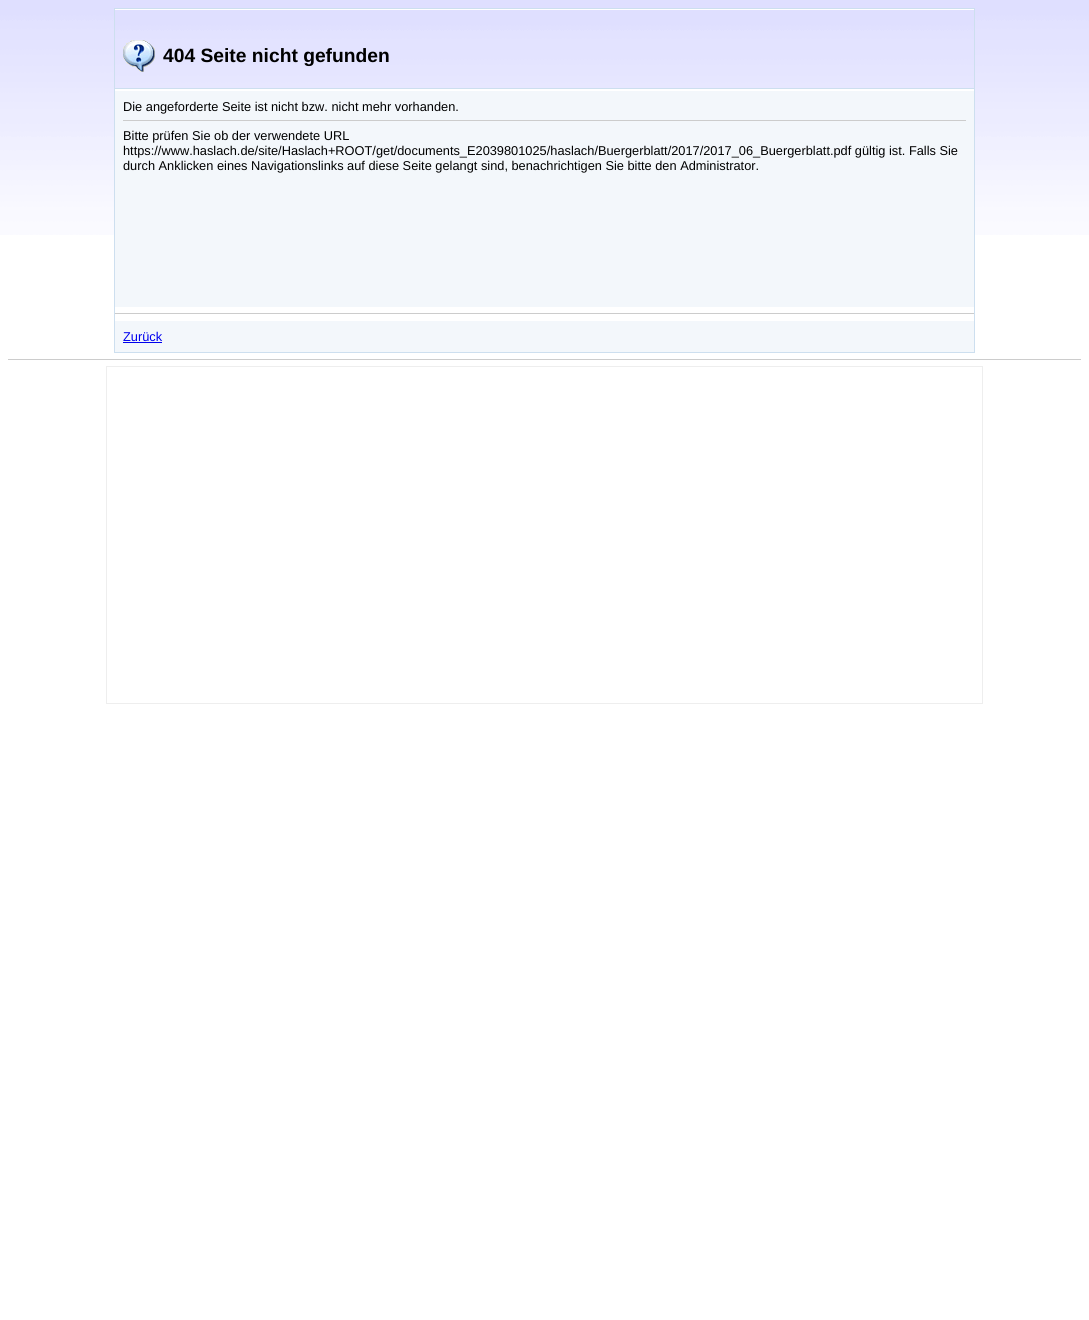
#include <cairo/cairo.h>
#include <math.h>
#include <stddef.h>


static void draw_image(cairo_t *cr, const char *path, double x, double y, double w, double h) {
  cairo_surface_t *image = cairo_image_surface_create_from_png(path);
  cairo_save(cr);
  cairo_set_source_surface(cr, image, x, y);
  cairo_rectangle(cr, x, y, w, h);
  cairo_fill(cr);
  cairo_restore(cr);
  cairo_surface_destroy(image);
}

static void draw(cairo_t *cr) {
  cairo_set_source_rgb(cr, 1, 1, 1);
  cairo_paint(cr);
  draw_image(cr, "images/1.png", 0, 0, 1089, 235);
  cairo_rectangle(cr, 114.5, 8.5, 860, 344);
  cairo_set_source_rgb(cr, 205 / 255.0, 223 / 255.0, 239 / 255.0);
  cairo_set_line_width(cr, 1);
  cairo_stroke(cr);
  draw_image(cr, "images/2.png", 115, 10, 859, 78);
  cairo_set_source_rgb(cr, 1, 1, 1);
  cairo_rectangle(cr, 115, 9, 859, 1);
  cairo_fill(cr);
  cairo_set_source_rgb(cr, 205 / 255.0, 223 / 255.0, 239 / 255.0);
  cairo_rectangle(cr, 115, 88, 859, 1);
  cairo_fill(cr);
  draw_image(cr, "images/3.png", 123, 40, 32, 32);
  cairo_set_source_rgb(cr, 243 / 255.0, 247 / 255.0, 251 / 255.0);
  cairo_rectangle(cr, 115, 91, 859, 216);
  cairo_fill(cr);
  cairo_set_source_rgb(cr, 1, 1, 1);
  cairo_rectangle(cr, 115, 89, 859, 2);
  cairo_fill(cr);
  cairo_set_source_rgb(cr, 204 / 255.0, 204 / 255.0, 204 / 255.0);
  cairo_rectangle(cr, 123, 120, 843, 1);
  cairo_fill(cr);
  cairo_rectangle(cr, 115, 313, 859, 1);
  cairo_fill(cr);
  cairo_set_source_rgb(cr, 243 / 255.0, 247 / 255.0, 251 / 255.0);
  cairo_rectangle(cr, 115, 321, 859, 31);
  cairo_fill(cr);
  cairo_set_source_rgb(cr, 0, 0, 238 / 255.0);
  cairo_rectangle(cr, 123, 342, 39, 1);
  cairo_fill(cr);
  cairo_set_source_rgb(cr, 204 / 255.0, 204 / 255.0, 204 / 255.0);
  cairo_rectangle(cr, 8, 359, 1073, 1);
  cairo_fill(cr);
  cairo_rectangle(cr, 106.5, 366.5, 876, 337);
  cairo_set_source_rgb(cr, 238 / 255.0, 238 / 255.0, 238 / 255.0);
  cairo_stroke(cr);
  cairo_select_font_face(cr, "Liberation Sans", CAIRO_FONT_SLANT_NORMAL, CAIRO_FONT_WEIGHT_BOLD);
  cairo_set_font_size(cr, 19.25);
  cairo_set_source_rgb(cr, 0, 0, 0);
  cairo_move_to(cr, 163, 62);
  cairo_show_text(cr, "404 Seite nicht gefunden");
  cairo_select_font_face(cr, "Liberation Sans", CAIRO_FONT_SLANT_NORMAL, CAIRO_FONT_WEIGHT_NORMAL);
  cairo_set_font_size(cr, 12.8);
  cairo_move_to(cr, 123, 111);
  cairo_show_text(cr, "Die angeforderte Seite ist nicht bzw. nicht mehr vorhanden.");
  cairo_move_to(cr, 123, 140);
  cairo_show_text(cr, "Bitte prüfen Sie ob der verwendete URL");
  cairo_move_to(cr, 123, 155);
  cairo_show_text(cr, "https://www.haslach.de/site/Haslach+ROOT/get/documents_E2039801025/haslach/Buergerblatt/2017/2017_06_Buergerblatt.pdf gültig ist. Falls Sie");
  cairo_move_to(cr, 123, 170);
  cairo_show_text(cr, "durch Anklicken eines Navigationslinks auf diese Seite gelangt sind, benachrichtigen Sie bitte den Administrator.");
  cairo_set_source_rgb(cr, 0, 0, 238 / 255.0);
  cairo_move_to(cr, 123, 341);
  cairo_show_text(cr, "Zurück");
}

int main(void) {
  cairo_surface_t *surface = cairo_image_surface_create(CAIRO_FORMAT_RGB24, 1089, 1320);
  cairo_t *cr = cairo_create(surface);
  cairo_font_options_t *options = cairo_font_options_create();
  cairo_font_options_set_hint_metrics(options, CAIRO_HINT_METRICS_OFF);
  cairo_font_options_set_hint_style(options, CAIRO_HINT_STYLE_NONE);
  cairo_set_font_options(cr, options);
  cairo_set_miter_limit(cr, 4);
  draw(cr);
  cairo_surface_write_to_png(surface, "out.png");
  cairo_font_options_destroy(options);
  cairo_destroy(cr);
  cairo_surface_destroy(surface);
  return 0;
}
